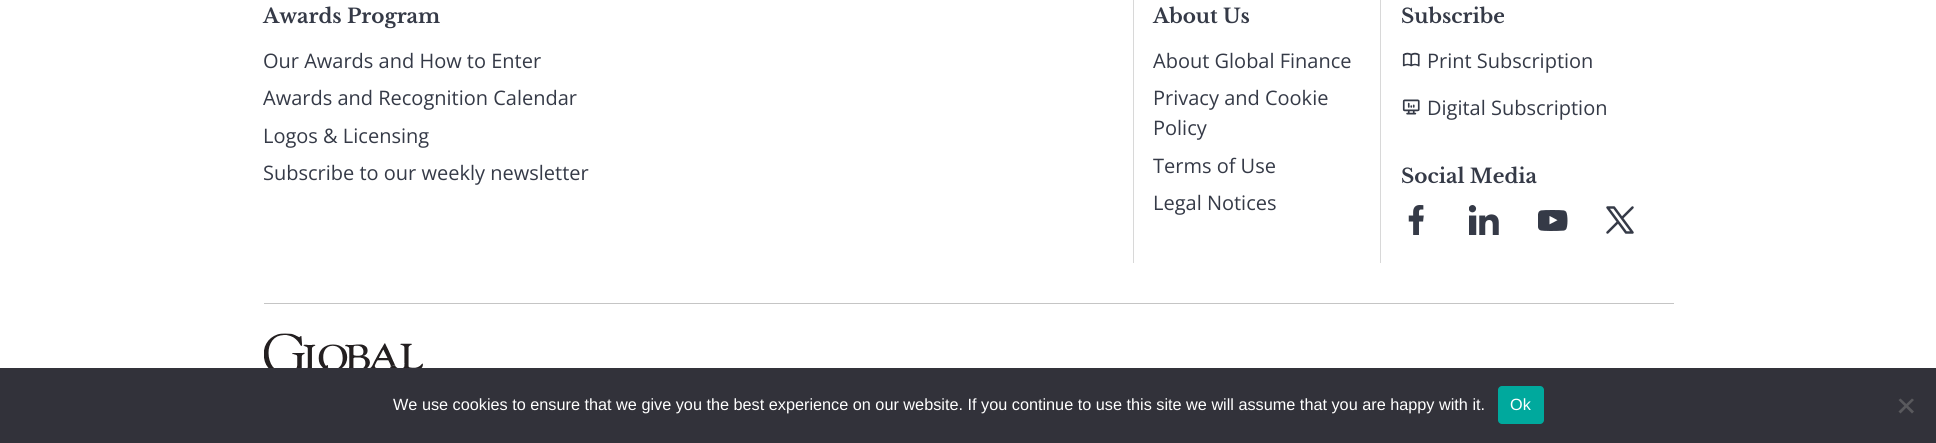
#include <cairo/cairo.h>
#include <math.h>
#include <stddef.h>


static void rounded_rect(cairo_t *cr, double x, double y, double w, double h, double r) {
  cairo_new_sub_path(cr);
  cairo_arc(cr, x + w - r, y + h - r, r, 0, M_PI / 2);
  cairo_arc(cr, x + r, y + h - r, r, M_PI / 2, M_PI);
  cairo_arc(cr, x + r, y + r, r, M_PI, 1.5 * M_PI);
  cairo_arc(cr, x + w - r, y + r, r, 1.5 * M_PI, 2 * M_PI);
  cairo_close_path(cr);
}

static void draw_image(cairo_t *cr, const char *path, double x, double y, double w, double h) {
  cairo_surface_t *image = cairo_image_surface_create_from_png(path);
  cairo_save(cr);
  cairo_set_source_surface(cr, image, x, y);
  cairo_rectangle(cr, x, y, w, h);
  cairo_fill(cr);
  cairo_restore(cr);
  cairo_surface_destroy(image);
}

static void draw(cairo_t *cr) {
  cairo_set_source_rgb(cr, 1, 1, 1);
  cairo_paint(cr);
  cairo_set_source_rgb(cr, 197 / 255.0, 197 / 255.0, 197 / 255.0);
  cairo_rectangle(cr, 264, 303, 1410, 1);
  cairo_fill(cr);
  cairo_set_source_rgb(cr, 216 / 255.0, 216 / 255.0, 216 / 255.0);
  cairo_rectangle(cr, 1133, 0, 1, 263);
  cairo_fill(cr);
  cairo_rectangle(cr, 1380, 0, 1, 263);
  cairo_fill(cr);
  draw_image(cr, "images/1.png", 1402, 52, 18, 15);
  draw_image(cr, "images/2.png", 1402, 99, 18, 16);
  draw_image(cr, "images/3.png", 1408, 205, 16, 30);
  draw_image(cr, "images/4.png", 1469, 205, 30, 30);
  draw_image(cr, "images/5.png", 1538, 210, 30, 21);
  cairo_new_path(cr);
  cairo_move_to(cr, 1607.5, 207.5);
  cairo_line_to(cr, 1626, 232.5);
  cairo_line_to(cr, 1632.5, 232.5);
  cairo_line_to(cr, 1614, 207.5);
  cairo_close_path(cr);
  cairo_move_to(cr, 1607.5, 232.5);
  cairo_line_to(cr, 1618, 222);
  cairo_move_to(cr, 1622, 218);
  cairo_line_to(cr, 1632.5, 207.5);
  cairo_set_source_rgb(cr, 53 / 255.0, 58 / 255.0, 71 / 255.0);
  cairo_set_line_width(cr, 2.5);
  cairo_set_line_cap(cr, CAIRO_LINE_CAP_ROUND);
  cairo_set_line_join(cr, CAIRO_LINE_JOIN_ROUND);
  cairo_stroke(cr);
  draw_image(cr, "images/6.png", 264, 333, 159, 35);
  cairo_set_source_rgb(cr, 50 / 255.0, 50 / 255.0, 58 / 255.0);
  cairo_rectangle(cr, 0, 368, 1936, 75);
  cairo_fill(cr);
  cairo_set_source_rgb(cr, 0, 169 / 255.0, 157 / 255.0);
  rounded_rect(cr, 1498, 386, 46, 38, 4);
  cairo_fill(cr);
  cairo_set_source_rgb(cr, 89 / 255.0, 89 / 255.0, 93 / 255.0);
  cairo_new_path(cr);
  cairo_move_to(cr, 1912, 398.5);
  cairo_line_to(cr, 1914, 400);
  cairo_line_to(cr, 1900.5, 413.5);
  cairo_line_to(cr, 1898.5, 411.5);
  cairo_close_path(cr);
  cairo_fill(cr);
  cairo_new_path(cr);
  cairo_move_to(cr, 1898.5, 400);
  cairo_line_to(cr, 1900.5, 398.5);
  cairo_line_to(cr, 1914, 411.5);
  cairo_line_to(cr, 1912, 413.5);
  cairo_close_path(cr);
  cairo_fill(cr);
  cairo_select_font_face(cr, "Libre Baskerville", CAIRO_FONT_SLANT_NORMAL, CAIRO_FONT_WEIGHT_BOLD);
  cairo_set_font_size(cr, 20);
  cairo_set_source_rgb(cr, 53 / 255.0, 58 / 255.0, 71 / 255.0);
  cairo_move_to(cr, 263, 23);
  cairo_show_text(cr, "Awards Program");
  cairo_select_font_face(cr, "Open Sans", CAIRO_FONT_SLANT_NORMAL, CAIRO_FONT_WEIGHT_NORMAL);
  cairo_move_to(cr, 263, 68);
  cairo_show_text(cr, "Our Awards and How to Enter");
  cairo_move_to(cr, 263, 105);
  cairo_show_text(cr, "Awards and Recognition Calendar");
  cairo_move_to(cr, 263, 143);
  cairo_show_text(cr, "Logos & Licensing");
  cairo_move_to(cr, 263, 180);
  cairo_show_text(cr, "Subscribe to our weekly newsletter");
  cairo_select_font_face(cr, "Libre Baskerville", CAIRO_FONT_SLANT_NORMAL, CAIRO_FONT_WEIGHT_BOLD);
  cairo_move_to(cr, 1153, 23);
  cairo_show_text(cr, "About Us");
  cairo_select_font_face(cr, "Open Sans", CAIRO_FONT_SLANT_NORMAL, CAIRO_FONT_WEIGHT_NORMAL);
  cairo_move_to(cr, 1153, 68);
  cairo_show_text(cr, "About Global Finance");
  cairo_move_to(cr, 1153, 105);
  cairo_show_text(cr, "Privacy and Cookie");
  cairo_move_to(cr, 1153, 135);
  cairo_show_text(cr, "Policy");
  cairo_move_to(cr, 1153, 173);
  cairo_show_text(cr, "Terms of Use");
  cairo_move_to(cr, 1153, 210);
  cairo_show_text(cr, "Legal Notices");
  cairo_select_font_face(cr, "Libre Baskerville", CAIRO_FONT_SLANT_NORMAL, CAIRO_FONT_WEIGHT_BOLD);
  cairo_move_to(cr, 1401, 23);
  cairo_show_text(cr, "Subscribe");
  cairo_select_font_face(cr, "Open Sans", CAIRO_FONT_SLANT_NORMAL, CAIRO_FONT_WEIGHT_NORMAL);
  cairo_move_to(cr, 1427, 68);
  cairo_show_text(cr, "Print Subscription");
  cairo_move_to(cr, 1427, 115);
  cairo_show_text(cr, "Digital Subscription");
  cairo_select_font_face(cr, "Libre Baskerville", CAIRO_FONT_SLANT_NORMAL, CAIRO_FONT_WEIGHT_BOLD);
  cairo_move_to(cr, 1401, 183);
  cairo_show_text(cr, "Social Media");
  cairo_select_font_face(cr, "Liberation Sans", CAIRO_FONT_SLANT_NORMAL, CAIRO_FONT_WEIGHT_NORMAL);
  cairo_set_font_size(cr, 16.25);
  cairo_set_source_rgb(cr, 1, 1, 1);
  cairo_move_to(cr, 393, 410);
  cairo_show_text(cr, "We use cookies to ensure that we give you the best experience on our website. If you continue to use this site we will assume that you are happy with it.");
  cairo_move_to(cr, 1510, 410);
  cairo_show_text(cr, "Ok");
}

int main(void) {
  cairo_surface_t *surface = cairo_image_surface_create(CAIRO_FORMAT_RGB24, 1936, 443);
  cairo_t *cr = cairo_create(surface);
  cairo_font_options_t *options = cairo_font_options_create();
  cairo_font_options_set_hint_metrics(options, CAIRO_HINT_METRICS_OFF);
  cairo_font_options_set_hint_style(options, CAIRO_HINT_STYLE_NONE);
  cairo_set_font_options(cr, options);
  cairo_set_miter_limit(cr, 4);
  draw(cr);
  cairo_surface_write_to_png(surface, "out.png");
  cairo_font_options_destroy(options);
  cairo_destroy(cr);
  cairo_surface_destroy(surface);
  return 0;
}
